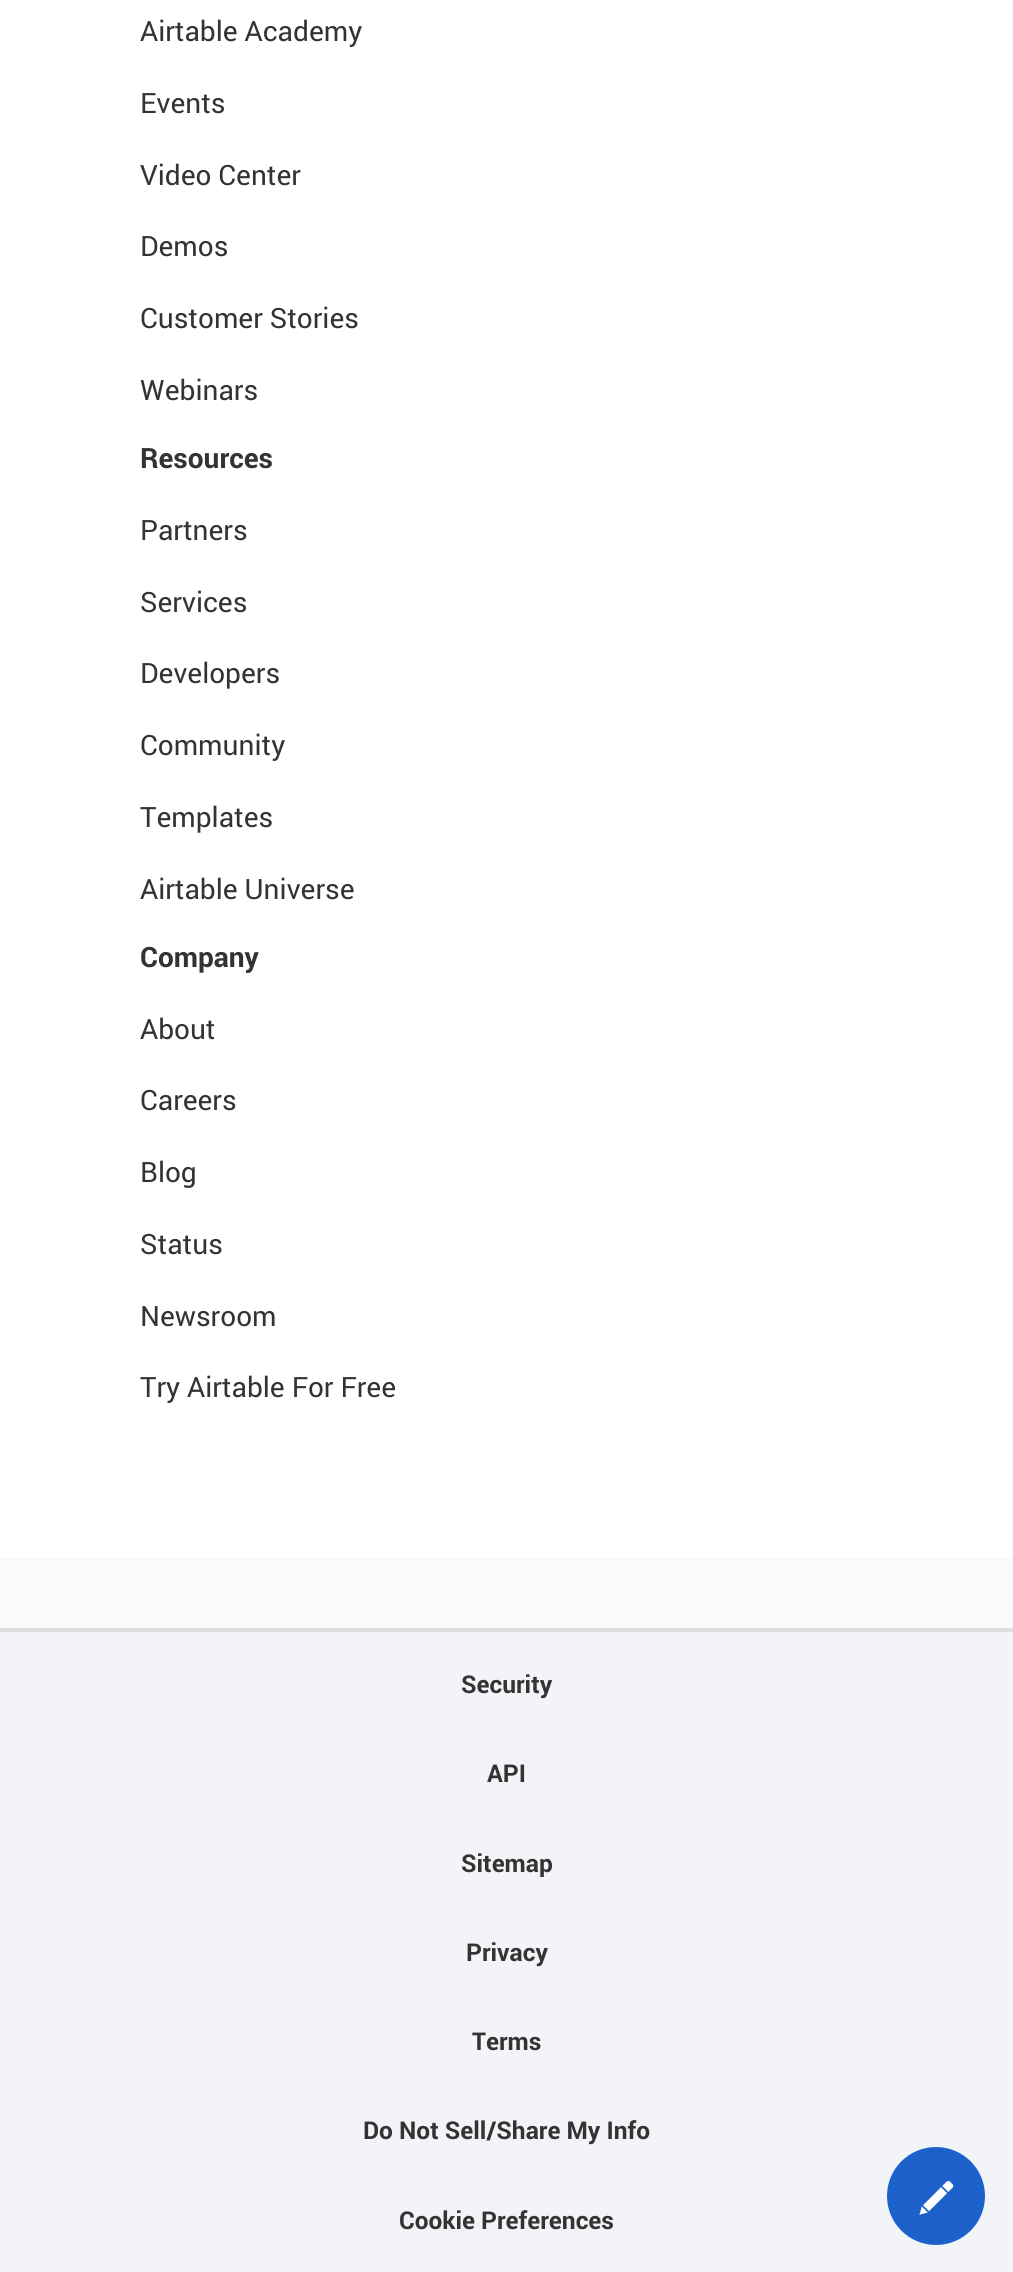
#include <cairo/cairo.h>
#include <math.h>
#include <stddef.h>


static void draw_image(cairo_t *cr, const char *path, double x, double y, double w, double h) {
  cairo_surface_t *image = cairo_image_surface_create_from_png(path);
  cairo_save(cr);
  cairo_set_source_surface(cr, image, x, y);
  cairo_rectangle(cr, x, y, w, h);
  cairo_fill(cr);
  cairo_restore(cr);
  cairo_surface_destroy(image);
}

static void draw(cairo_t *cr) {
  cairo_set_source_rgb(cr, 248 / 255.0, 250 / 255.0, 252 / 255.0);
  cairo_paint(cr);
  cairo_set_source_rgb(cr, 1, 1, 1);
  cairo_rectangle(cr, 0, 0, 1013, 1558);
  cairo_fill(cr);
  cairo_set_source_rgb(cr, 242 / 255.0, 244 / 255.0, 247 / 255.0);
  cairo_rectangle(cr, 0, 1632, 1013, 640);
  cairo_fill(cr);
  cairo_set_source_rgb(cr, 222 / 255.0, 222 / 255.0, 222 / 255.0);
  cairo_rectangle(cr, 0, 1628, 1013, 4);
  cairo_fill(cr);
  cairo_set_source_rgb(cr, 27 / 255.0, 97 / 255.0, 201 / 255.0);
  cairo_arc(cr, 936, 2196, 48, 0, 2 * M_PI);
  cairo_fill_preserve(cr);
  cairo_stroke(cr);
  draw_image(cr, "images/1.png", 919, 2181, 35, 34);
  cairo_select_font_face(cr, "Roboto", CAIRO_FONT_SLANT_NORMAL, CAIRO_FONT_WEIGHT_NORMAL);
  cairo_set_font_size(cr, 28);
  cairo_set_source_rgb(cr, 51 / 255.0, 51 / 255.0, 51 / 255.0);
  cairo_move_to(cr, 140, 41);
  cairo_show_text(cr, "Airtable Academy");
  cairo_move_to(cr, 140, 113);
  cairo_show_text(cr, "Events");
  cairo_move_to(cr, 140, 185);
  cairo_show_text(cr, "Video Center");
  cairo_move_to(cr, 140, 256);
  cairo_show_text(cr, "Demos");
  cairo_move_to(cr, 140, 328);
  cairo_show_text(cr, "Customer Stories");
  cairo_move_to(cr, 140, 400);
  cairo_show_text(cr, "Webinars");
  cairo_select_font_face(cr, "Roboto", CAIRO_FONT_SLANT_NORMAL, CAIRO_FONT_WEIGHT_BOLD);
  cairo_move_to(cr, 140, 468);
  cairo_show_text(cr, "Resources");
  cairo_select_font_face(cr, "Roboto", CAIRO_FONT_SLANT_NORMAL, CAIRO_FONT_WEIGHT_NORMAL);
  cairo_move_to(cr, 140, 540);
  cairo_show_text(cr, "Partners");
  cairo_move_to(cr, 140, 612);
  cairo_show_text(cr, "Services");
  cairo_move_to(cr, 140, 683);
  cairo_show_text(cr, "Developers");
  cairo_move_to(cr, 140, 755);
  cairo_show_text(cr, "Community");
  cairo_move_to(cr, 140, 827);
  cairo_show_text(cr, "Templates");
  cairo_move_to(cr, 140, 899);
  cairo_show_text(cr, "Airtable Universe");
  cairo_select_font_face(cr, "Roboto", CAIRO_FONT_SLANT_NORMAL, CAIRO_FONT_WEIGHT_BOLD);
  cairo_move_to(cr, 140, 967);
  cairo_show_text(cr, "Company");
  cairo_select_font_face(cr, "Roboto", CAIRO_FONT_SLANT_NORMAL, CAIRO_FONT_WEIGHT_NORMAL);
  cairo_move_to(cr, 140, 1039);
  cairo_show_text(cr, "About");
  cairo_move_to(cr, 140, 1110);
  cairo_show_text(cr, "Careers");
  cairo_move_to(cr, 140, 1182);
  cairo_show_text(cr, "Blog");
  cairo_move_to(cr, 140, 1254);
  cairo_show_text(cr, "Status");
  cairo_move_to(cr, 140, 1326);
  cairo_show_text(cr, "Newsroom");
  cairo_move_to(cr, 140, 1397);
  cairo_show_text(cr, "Try Airtable For Free");
  cairo_select_font_face(cr, "Roboto", CAIRO_FONT_SLANT_NORMAL, CAIRO_FONT_WEIGHT_BOLD);
  cairo_set_font_size(cr, 24.5);
  cairo_move_to(cr, 461, 1693);
  cairo_show_text(cr, "Security");
  cairo_move_to(cr, 487, 1782);
  cairo_show_text(cr, "API");
  cairo_move_to(cr, 461, 1872);
  cairo_show_text(cr, "Sitemap");
  cairo_move_to(cr, 466, 1961);
  cairo_show_text(cr, "Privacy");
  cairo_move_to(cr, 472, 2050);
  cairo_show_text(cr, "Terms");
  cairo_move_to(cr, 363, 2139);
  cairo_show_text(cr, "Do Not Sell/Share My Info");
  cairo_move_to(cr, 399, 2229);
  cairo_show_text(cr, "Cookie Preferences");
}

int main(void) {
  cairo_surface_t *surface = cairo_image_surface_create(CAIRO_FORMAT_RGB24, 1013, 2272);
  cairo_t *cr = cairo_create(surface);
  cairo_font_options_t *options = cairo_font_options_create();
  cairo_font_options_set_hint_metrics(options, CAIRO_HINT_METRICS_OFF);
  cairo_font_options_set_hint_style(options, CAIRO_HINT_STYLE_NONE);
  cairo_set_font_options(cr, options);
  cairo_set_miter_limit(cr, 4);
  draw(cr);
  cairo_surface_write_to_png(surface, "out.png");
  cairo_font_options_destroy(options);
  cairo_destroy(cr);
  cairo_surface_destroy(surface);
  return 0;
}
